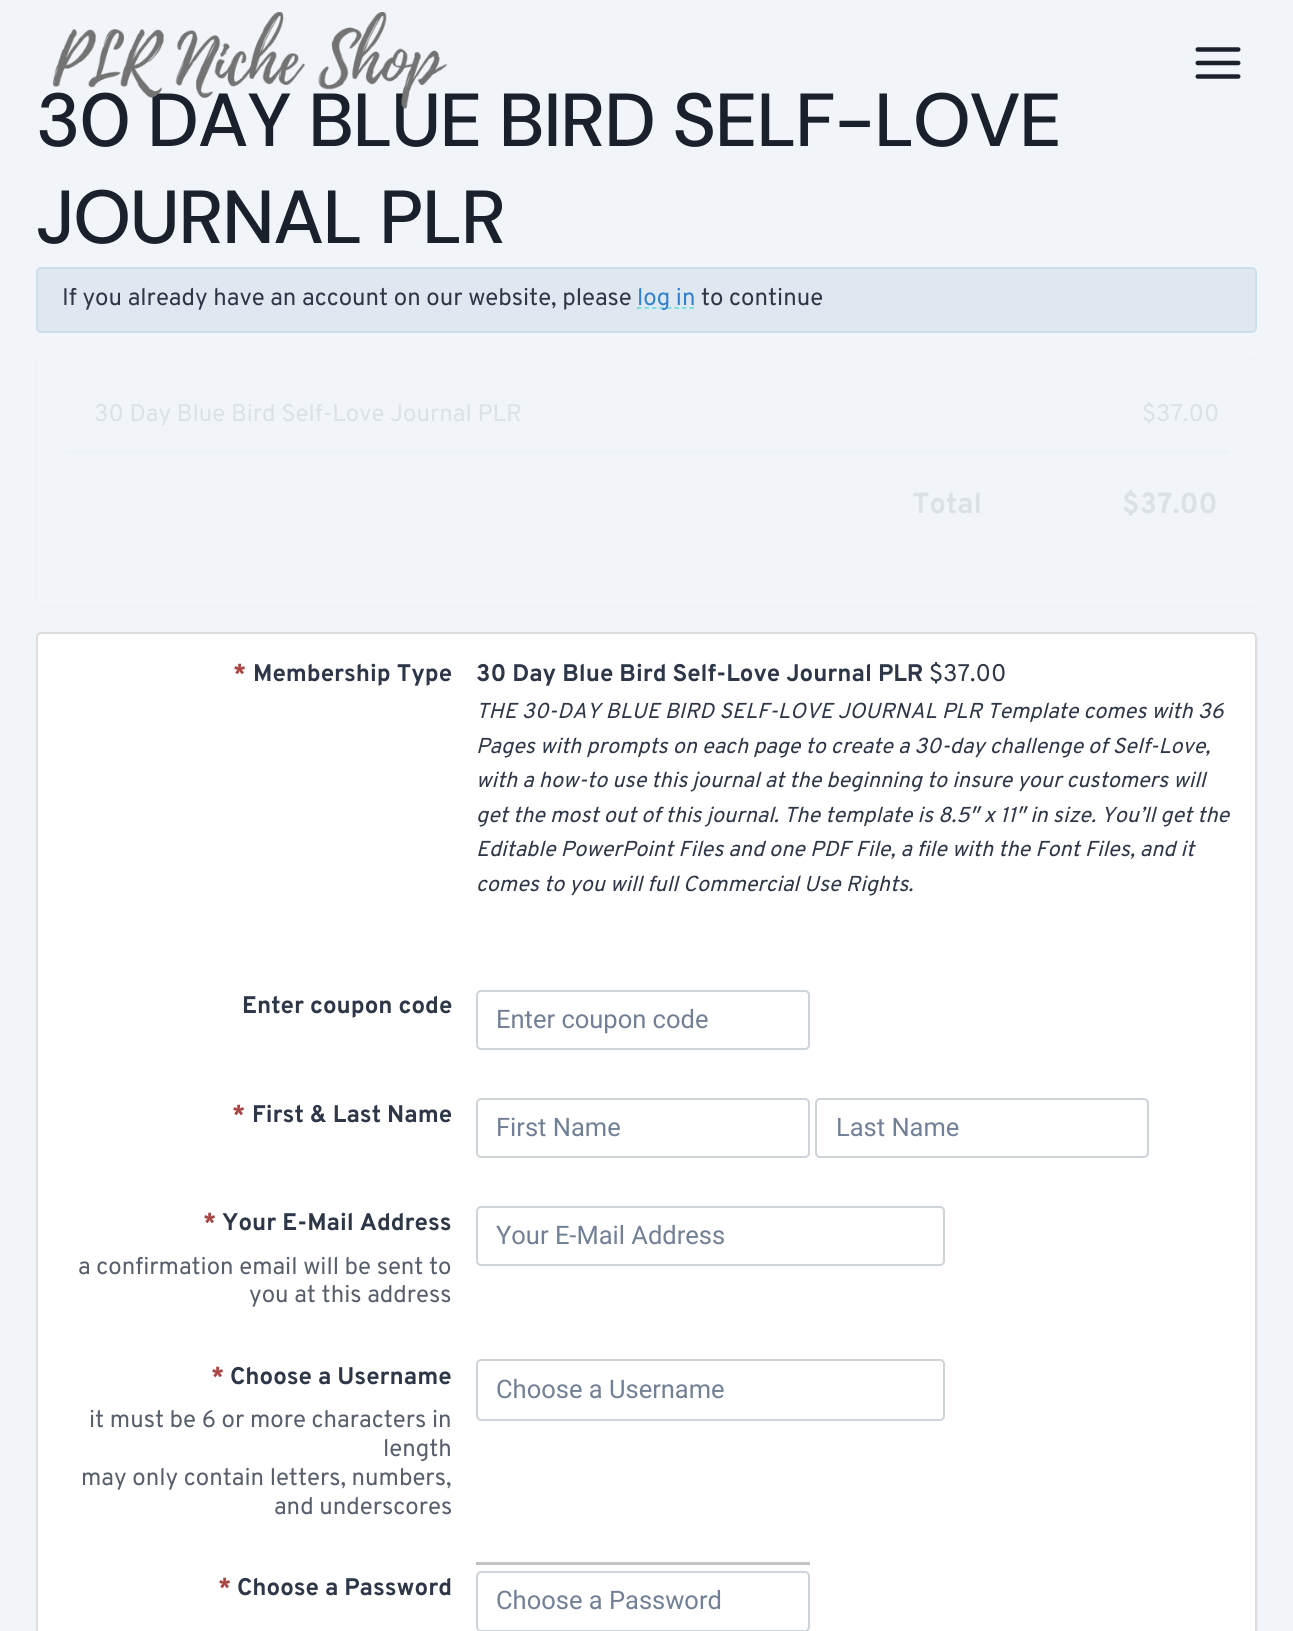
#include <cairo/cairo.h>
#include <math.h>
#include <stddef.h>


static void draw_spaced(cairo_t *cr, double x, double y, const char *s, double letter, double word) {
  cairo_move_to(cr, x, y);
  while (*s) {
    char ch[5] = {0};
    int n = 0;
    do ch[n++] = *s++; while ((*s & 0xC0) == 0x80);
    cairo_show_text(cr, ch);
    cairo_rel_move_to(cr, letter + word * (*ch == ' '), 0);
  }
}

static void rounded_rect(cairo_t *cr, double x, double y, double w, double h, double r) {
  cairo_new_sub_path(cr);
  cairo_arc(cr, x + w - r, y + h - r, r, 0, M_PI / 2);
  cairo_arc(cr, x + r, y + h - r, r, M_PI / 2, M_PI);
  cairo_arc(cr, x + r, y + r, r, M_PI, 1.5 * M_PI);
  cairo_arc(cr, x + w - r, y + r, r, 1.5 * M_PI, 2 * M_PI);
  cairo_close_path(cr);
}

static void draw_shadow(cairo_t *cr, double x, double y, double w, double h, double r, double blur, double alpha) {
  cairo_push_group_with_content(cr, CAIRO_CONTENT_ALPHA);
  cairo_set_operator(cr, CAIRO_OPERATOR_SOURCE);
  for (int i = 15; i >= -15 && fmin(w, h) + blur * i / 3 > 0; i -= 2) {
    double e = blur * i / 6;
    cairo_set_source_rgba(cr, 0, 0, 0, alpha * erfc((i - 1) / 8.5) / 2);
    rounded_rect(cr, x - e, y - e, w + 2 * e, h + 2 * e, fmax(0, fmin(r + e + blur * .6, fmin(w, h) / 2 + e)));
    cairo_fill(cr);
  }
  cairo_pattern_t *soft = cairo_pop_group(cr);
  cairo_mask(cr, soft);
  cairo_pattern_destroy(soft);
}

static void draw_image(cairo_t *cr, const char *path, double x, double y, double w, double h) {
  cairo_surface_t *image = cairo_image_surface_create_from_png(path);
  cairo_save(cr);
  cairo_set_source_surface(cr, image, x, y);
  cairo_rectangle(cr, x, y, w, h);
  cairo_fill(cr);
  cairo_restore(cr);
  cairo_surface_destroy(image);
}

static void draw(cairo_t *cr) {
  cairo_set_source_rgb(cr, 241 / 255.0, 245 / 255.0, 249 / 255.0);
  cairo_paint(cr);
  draw_image(cr, "images/2.png", 1195, 47, 46, 32);
  cairo_set_source_rgb(cr, 223 / 255.0, 232 / 255.0, 240 / 255.0);
  rounded_rect(cr, 37, 268, 1219, 64, 4);
  cairo_fill_preserve(cr);
  cairo_set_source_rgb(cr, 204 / 255.0, 221 / 255.0, 235 / 255.0);
  cairo_stroke(cr);
  cairo_new_path(cr);
  cairo_move_to(cr, 637, 308);
  cairo_line_to(cr, 695.5, 308);
  cairo_set_source_rgb(cr, 96 / 255.0, 219 / 255.0, 219 / 255.0);
  cairo_set_line_width(cr, 1.5);
  cairo_set_dash(cr, (double[]){4.5, 3}, 2, 0);
  cairo_stroke(cr);
  rounded_rect(cr, 37, 358, 1219, 249, 4);
  cairo_set_source_rgb(cr, 239 / 255.0, 242 / 255.0, 246 / 255.0);
  cairo_set_line_width(cr, 2);
  cairo_set_dash(cr, NULL, 0, 0);
  cairo_stroke(cr);
  cairo_set_source_rgb(cr, 237 / 255.0, 242 / 255.0, 246 / 255.0);
  cairo_rectangle(cr, 65, 450, 1164, 3);
  cairo_fill(cr);
  cairo_set_source_rgb(cr, 176 / 255.0, 176 / 255.0, 176 / 255.0);
  draw_shadow(cr, 38, 635, 1218, 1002, 3, 1, 1);
  cairo_set_source_rgb(cr, 1, 1, 1);
  rounded_rect(cr, 37, 633, 1219, 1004, 4);
  cairo_fill_preserve(cr);
  cairo_set_source_rgb(cr, 221 / 255.0, 221 / 255.0, 221 / 255.0);
  cairo_stroke(cr);
  rounded_rect(cr, 477, 991, 332, 58, 4);
  cairo_set_source_rgb(cr, 206 / 255.0, 212 / 255.0, 218 / 255.0);
  cairo_stroke(cr);
  rounded_rect(cr, 477, 1099, 332, 58, 4);
  cairo_stroke(cr);
  rounded_rect(cr, 816, 1099, 332, 58, 4);
  cairo_stroke(cr);
  rounded_rect(cr, 477, 1207, 467, 58, 4);
  cairo_stroke(cr);
  rounded_rect(cr, 477, 1360, 467, 60, 4);
  cairo_stroke(cr);
  cairo_set_source_rgb(cr, 194 / 255.0, 194 / 255.0, 194 / 255.0);
  cairo_rectangle(cr, 476, 1562, 334, 3);
  cairo_fill(cr);
  rounded_rect(cr, 477, 1572, 332, 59, 4);
  cairo_set_source_rgb(cr, 206 / 255.0, 212 / 255.0, 218 / 255.0);
  cairo_stroke(cr);
  cairo_select_font_face(cr, "DM Sans Medium", CAIRO_FONT_SLANT_NORMAL, CAIRO_FONT_WEIGHT_NORMAL);
  cairo_set_font_size(cr, 75);
  cairo_set_source_rgb(cr, 26 / 255.0, 32 / 255.0, 44 / 255.0);
  draw_spaced(cr, 36, 146, "30 DAY BLUE BIRD SELF-LOVE", -1.5, 0);
  draw_image(cr, "images/1.png", 53, 12, 395, 97);
  draw_spaced(cr, 36, 243, "JOURNAL PLR", -1.5, 0);
  cairo_select_font_face(cr, "Overpass", CAIRO_FONT_SLANT_NORMAL, CAIRO_FONT_WEIGHT_NORMAL);
  cairo_set_font_size(cr, 24);
  cairo_set_source_rgb(cr, 45 / 255.0, 55 / 255.0, 72 / 255.0);
  cairo_move_to(cr, 62, 305);
  cairo_show_text(cr, "If you already have an account on our website, please");
  cairo_set_source_rgb(cr, 49 / 255.0, 130 / 255.0, 206 / 255.0);
  cairo_move_to(cr, 637, 305);
  cairo_show_text(cr, "log in");
  cairo_set_source_rgb(cr, 45 / 255.0, 55 / 255.0, 72 / 255.0);
  cairo_move_to(cr, 701, 305);
  cairo_show_text(cr, "to continue");
  cairo_set_source_rgb(cr, 220 / 255.0, 225 / 255.0, 230 / 255.0);
  cairo_move_to(cr, 94, 421);
  cairo_show_text(cr, "30 Day Blue Bird Self-Love Journal PLR");
  cairo_move_to(cr, 1142, 421);
  cairo_show_text(cr, "$37.00");
  cairo_select_font_face(cr, "Overpass", CAIRO_FONT_SLANT_NORMAL, CAIRO_FONT_WEIGHT_BOLD);
  cairo_set_font_size(cr, 29);
  cairo_move_to(cr, 912, 513);
  cairo_show_text(cr, "Total");
  cairo_move_to(cr, 1122, 513);
  cairo_show_text(cr, "$37.00");
  cairo_set_font_size(cr, 24);
  cairo_set_source_rgb(cr, 169 / 255.0, 68 / 255.0, 66 / 255.0);
  cairo_move_to(cr, 233, 681);
  cairo_show_text(cr, "*");
  cairo_set_source_rgb(cr, 45 / 255.0, 55 / 255.0, 72 / 255.0);
  cairo_move_to(cr, 253, 681);
  cairo_show_text(cr, "Membership Type");
  cairo_move_to(cr, 476, 681);
  cairo_show_text(cr, "30 Day Blue Bird Self-Love Journal PLR");
  cairo_select_font_face(cr, "Overpass", CAIRO_FONT_SLANT_NORMAL, CAIRO_FONT_WEIGHT_NORMAL);
  cairo_move_to(cr, 929, 681);
  cairo_show_text(cr, "$37.00");
  cairo_select_font_face(cr, "Overpass", CAIRO_FONT_SLANT_ITALIC, CAIRO_FONT_WEIGHT_NORMAL);
  cairo_set_font_size(cr, 21.6);
  cairo_move_to(cr, 476, 718);
  cairo_show_text(cr, "THE 30-DAY BLUE BIRD SELF-LOVE JOURNAL PLR Template comes with 36");
  cairo_move_to(cr, 476, 753);
  cairo_show_text(cr, "Pages with prompts on each page to create a 30-day challenge of Self-Love,");
  cairo_move_to(cr, 476, 787);
  cairo_show_text(cr, "with a how-to use this journal at the beginning to insure your customers will");
  cairo_move_to(cr, 476, 822);
  cairo_show_text(cr, "get the most out of this journal. The template is 8.5″ x 11″ in size. You’ll get the");
  cairo_move_to(cr, 476, 856);
  cairo_show_text(cr, "Editable PowerPoint Files and one PDF File, a file with the Font Files, and it");
  cairo_move_to(cr, 476, 891);
  cairo_show_text(cr, "comes to you will full Commercial Use Rights.");
  cairo_select_font_face(cr, "Overpass", CAIRO_FONT_SLANT_NORMAL, CAIRO_FONT_WEIGHT_BOLD);
  cairo_set_font_size(cr, 24);
  cairo_move_to(cr, 242, 1013);
  cairo_show_text(cr, "Enter coupon code");
  cairo_select_font_face(cr, "Roboto", CAIRO_FONT_SLANT_NORMAL, CAIRO_FONT_WEIGHT_NORMAL);
  cairo_set_font_size(cr, 25.5);
  cairo_set_source_rgb(cr, 113 / 255.0, 128 / 255.0, 150 / 255.0);
  cairo_move_to(cr, 496, 1028);
  cairo_show_text(cr, "Enter coupon code");
  cairo_select_font_face(cr, "Overpass", CAIRO_FONT_SLANT_NORMAL, CAIRO_FONT_WEIGHT_BOLD);
  cairo_set_font_size(cr, 24);
  cairo_set_source_rgb(cr, 169 / 255.0, 68 / 255.0, 66 / 255.0);
  cairo_move_to(cr, 232, 1122);
  cairo_show_text(cr, "*");
  cairo_set_source_rgb(cr, 45 / 255.0, 55 / 255.0, 72 / 255.0);
  cairo_move_to(cr, 252, 1122);
  cairo_show_text(cr, "First & Last Name");
  cairo_select_font_face(cr, "Roboto", CAIRO_FONT_SLANT_NORMAL, CAIRO_FONT_WEIGHT_NORMAL);
  cairo_set_font_size(cr, 25.5);
  cairo_set_source_rgb(cr, 113 / 255.0, 128 / 255.0, 150 / 255.0);
  cairo_move_to(cr, 496, 1136);
  cairo_show_text(cr, "First Name");
  cairo_move_to(cr, 836, 1136);
  cairo_show_text(cr, "Last Name");
  cairo_select_font_face(cr, "Overpass", CAIRO_FONT_SLANT_NORMAL, CAIRO_FONT_WEIGHT_BOLD);
  cairo_set_font_size(cr, 24);
  cairo_set_source_rgb(cr, 169 / 255.0, 68 / 255.0, 66 / 255.0);
  cairo_move_to(cr, 203, 1230);
  cairo_show_text(cr, "*");
  cairo_set_source_rgb(cr, 45 / 255.0, 55 / 255.0, 72 / 255.0);
  cairo_move_to(cr, 222, 1230);
  cairo_show_text(cr, "Your E-Mail Address");
  cairo_select_font_face(cr, "Overpass", CAIRO_FONT_SLANT_NORMAL, CAIRO_FONT_WEIGHT_NORMAL);
  cairo_set_source_rgb(cr, 87 / 255.0, 95 / 255.0, 109 / 255.0);
  cairo_move_to(cr, 78, 1274);
  cairo_show_text(cr, "a confirmation email will be sent to");
  cairo_move_to(cr, 249, 1302);
  cairo_show_text(cr, "you at this address");
  cairo_select_font_face(cr, "Roboto", CAIRO_FONT_SLANT_NORMAL, CAIRO_FONT_WEIGHT_NORMAL);
  cairo_set_font_size(cr, 25.5);
  cairo_set_source_rgb(cr, 113 / 255.0, 128 / 255.0, 150 / 255.0);
  cairo_move_to(cr, 496, 1244);
  cairo_show_text(cr, "Your E-Mail Address");
  cairo_select_font_face(cr, "Overpass", CAIRO_FONT_SLANT_NORMAL, CAIRO_FONT_WEIGHT_BOLD);
  cairo_set_font_size(cr, 24);
  cairo_set_source_rgb(cr, 169 / 255.0, 68 / 255.0, 66 / 255.0);
  cairo_move_to(cr, 211, 1384);
  cairo_show_text(cr, "*");
  cairo_set_source_rgb(cr, 45 / 255.0, 55 / 255.0, 72 / 255.0);
  cairo_move_to(cr, 230, 1384);
  cairo_show_text(cr, "Choose a Username");
  cairo_select_font_face(cr, "Overpass", CAIRO_FONT_SLANT_NORMAL, CAIRO_FONT_WEIGHT_NORMAL);
  cairo_set_source_rgb(cr, 87 / 255.0, 95 / 255.0, 109 / 255.0);
  cairo_move_to(cr, 89, 1427);
  cairo_show_text(cr, "it must be 6 or more characters in");
  cairo_move_to(cr, 383, 1456);
  cairo_show_text(cr, "length");
  cairo_move_to(cr, 81, 1485);
  cairo_show_text(cr, "may only contain letters, numbers,");
  cairo_move_to(cr, 274, 1514);
  cairo_show_text(cr, "and underscores");
  cairo_select_font_face(cr, "Roboto", CAIRO_FONT_SLANT_NORMAL, CAIRO_FONT_WEIGHT_NORMAL);
  cairo_set_font_size(cr, 25.5);
  cairo_set_source_rgb(cr, 113 / 255.0, 128 / 255.0, 150 / 255.0);
  cairo_move_to(cr, 496, 1398);
  cairo_show_text(cr, "Choose a Username");
  cairo_select_font_face(cr, "Overpass", CAIRO_FONT_SLANT_NORMAL, CAIRO_FONT_WEIGHT_BOLD);
  cairo_set_font_size(cr, 24);
  cairo_set_source_rgb(cr, 169 / 255.0, 68 / 255.0, 66 / 255.0);
  cairo_move_to(cr, 218, 1595);
  cairo_show_text(cr, "*");
  cairo_set_source_rgb(cr, 45 / 255.0, 55 / 255.0, 72 / 255.0);
  cairo_move_to(cr, 237, 1595);
  cairo_show_text(cr, "Choose a Password");
  cairo_select_font_face(cr, "Roboto", CAIRO_FONT_SLANT_NORMAL, CAIRO_FONT_WEIGHT_NORMAL);
  cairo_set_font_size(cr, 25.5);
  cairo_set_source_rgb(cr, 113 / 255.0, 128 / 255.0, 150 / 255.0);
  cairo_move_to(cr, 496, 1609);
  cairo_show_text(cr, "Choose a Password");
}

int main(void) {
  cairo_surface_t *surface = cairo_image_surface_create(CAIRO_FORMAT_RGB24, 1293, 1631);
  cairo_t *cr = cairo_create(surface);
  cairo_font_options_t *options = cairo_font_options_create();
  cairo_font_options_set_hint_metrics(options, CAIRO_HINT_METRICS_OFF);
  cairo_font_options_set_hint_style(options, CAIRO_HINT_STYLE_NONE);
  cairo_set_font_options(cr, options);
  cairo_set_miter_limit(cr, 4);
  draw(cr);
  cairo_surface_write_to_png(surface, "out.png");
  cairo_font_options_destroy(options);
  cairo_destroy(cr);
  cairo_surface_destroy(surface);
  return 0;
}
